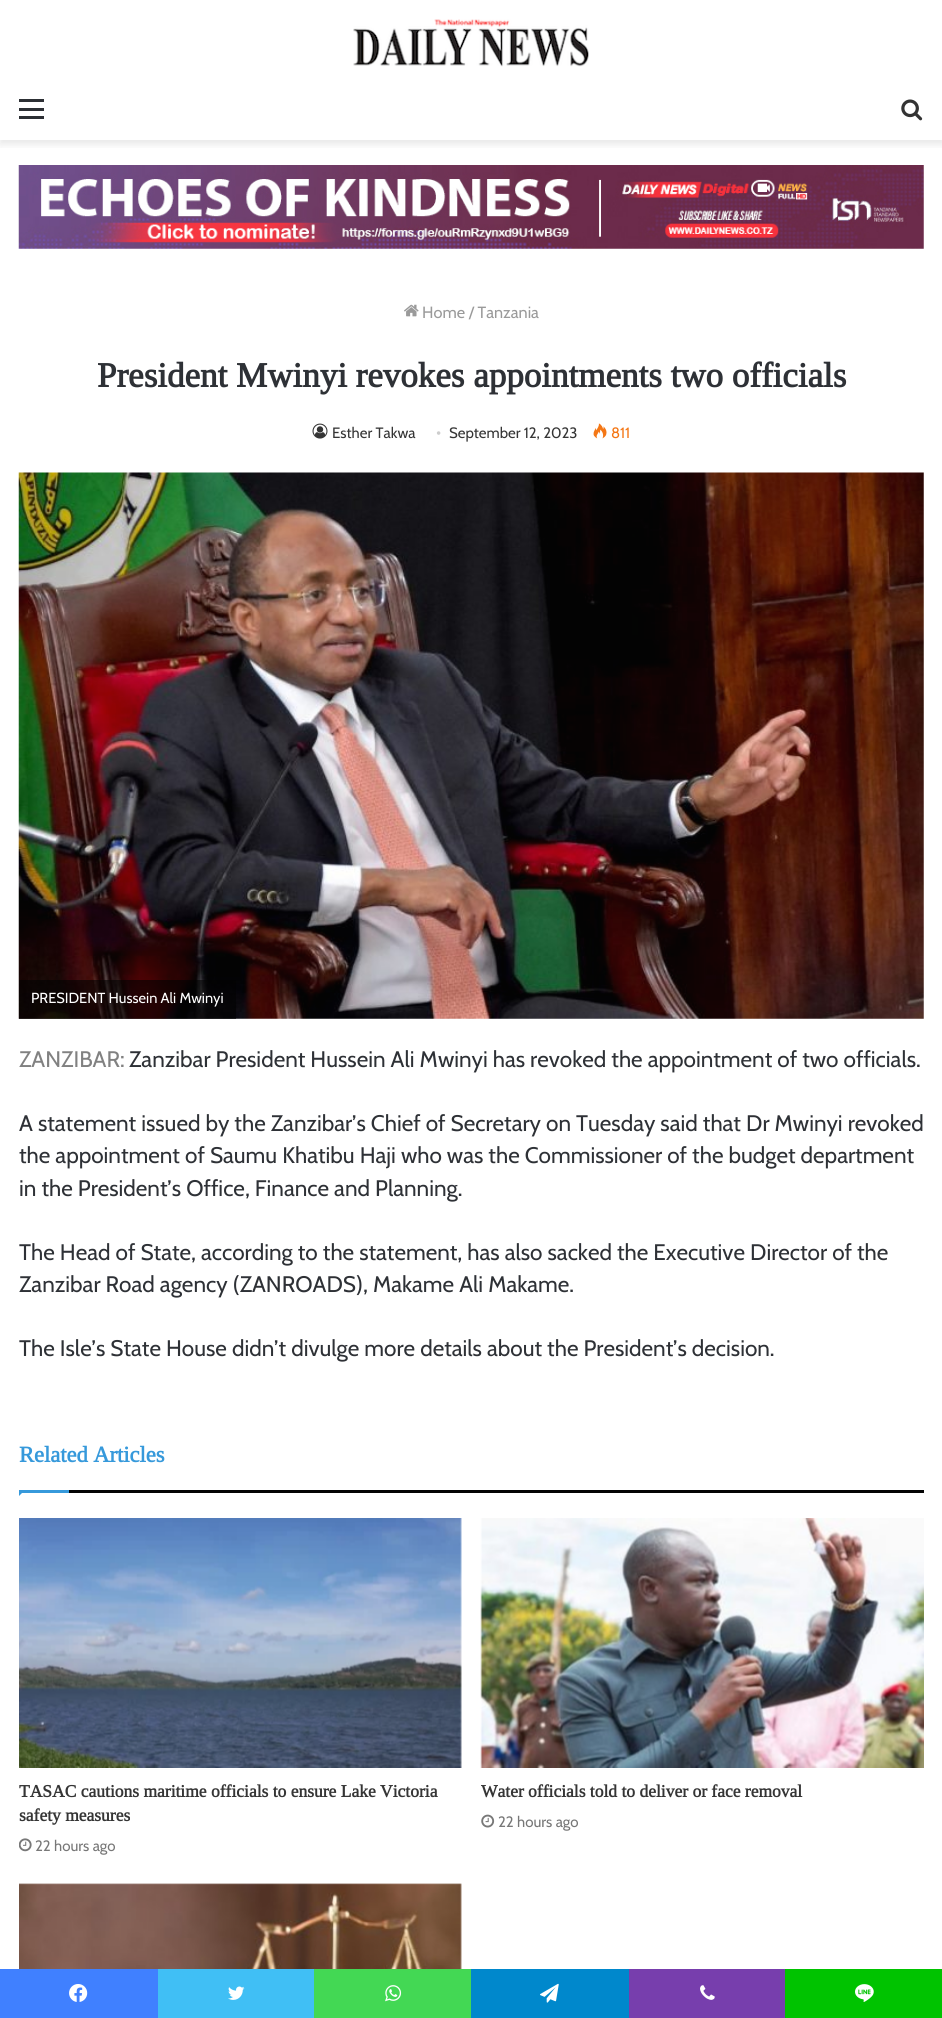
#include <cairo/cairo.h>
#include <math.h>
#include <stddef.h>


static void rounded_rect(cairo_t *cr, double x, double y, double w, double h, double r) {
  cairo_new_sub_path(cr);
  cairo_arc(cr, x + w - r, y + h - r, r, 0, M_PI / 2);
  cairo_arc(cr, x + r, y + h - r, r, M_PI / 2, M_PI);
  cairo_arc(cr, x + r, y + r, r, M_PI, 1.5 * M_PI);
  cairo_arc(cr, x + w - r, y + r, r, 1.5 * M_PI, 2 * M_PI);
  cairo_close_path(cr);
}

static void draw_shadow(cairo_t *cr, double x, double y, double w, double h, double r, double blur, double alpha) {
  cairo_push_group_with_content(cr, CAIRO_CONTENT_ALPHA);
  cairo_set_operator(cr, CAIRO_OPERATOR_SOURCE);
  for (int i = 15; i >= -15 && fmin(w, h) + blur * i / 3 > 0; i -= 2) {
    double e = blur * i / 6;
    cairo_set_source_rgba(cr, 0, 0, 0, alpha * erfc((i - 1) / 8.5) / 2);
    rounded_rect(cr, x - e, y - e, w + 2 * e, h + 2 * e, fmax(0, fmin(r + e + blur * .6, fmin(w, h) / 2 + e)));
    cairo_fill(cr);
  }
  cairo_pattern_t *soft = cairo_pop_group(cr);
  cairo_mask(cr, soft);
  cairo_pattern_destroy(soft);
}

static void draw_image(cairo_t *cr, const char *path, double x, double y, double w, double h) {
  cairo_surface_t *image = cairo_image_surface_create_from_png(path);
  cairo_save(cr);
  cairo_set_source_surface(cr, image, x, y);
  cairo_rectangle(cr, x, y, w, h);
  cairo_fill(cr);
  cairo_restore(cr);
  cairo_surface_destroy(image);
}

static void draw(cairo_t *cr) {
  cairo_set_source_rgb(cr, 1, 1, 1);
  cairo_paint(cr);
  cairo_save(cr);
  cairo_rectangle(cr, 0, 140, 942, 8);
  cairo_clip(cr);
  cairo_set_source_rgb(cr, 0, 0, 0);
  draw_shadow(cr, 0, 4, 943, 140, 0, 4.5, 0.1);
  cairo_restore(cr);
  draw_image(cr, "images/1.png", 353, 19, 236, 48);
  cairo_set_source_rgb(cr, 44 / 255.0, 47 / 255.0, 52 / 255.0);
  cairo_rectangle(cr, 19, 108, 25, 3);
  cairo_fill(cr);
  cairo_rectangle(cr, 19, 99, 25, 3);
  cairo_fill(cr);
  cairo_rectangle(cr, 19, 116, 25, 3);
  cairo_fill(cr);
  draw_image(cr, "images/2.png", 901, 99, 22, 22);
  draw_image(cr, "images/3.png", 18, 165, 906, 84);
  draw_image(cr, "images/4.png", 404, 304, 15, 13);
  draw_image(cr, "images/5.png", 312, 423, 16, 16);
  draw_image(cr, "images/6.png", 593, 423, 14, 16);
  draw_image(cr, "images/7.png", 18, 472, 906, 547);
  cairo_set_source_rgba(cr, 3 / 255.0, 3 / 255.0, 3 / 255.0, 0.6);
  cairo_rectangle(cr, 19, 980, 217, 39);
  cairo_fill(cr);
  cairo_set_source_rgb(cr, 3 / 255.0, 3 / 255.0, 3 / 255.0);
  cairo_rectangle(cr, 69, 1490, 855, 3);
  cairo_fill(cr);
  cairo_set_source_rgb(cr, 54 / 255.0, 153 / 255.0, 219 / 255.0);
  cairo_new_path(cr);
  cairo_move_to(cr, 19, 1490);
  cairo_line_to(cr, 25, 1490);
  cairo_line_to(cr, 19, 1496);
  cairo_close_path(cr);
  cairo_fill(cr);
  cairo_rectangle(cr, 19, 1490, 50, 3);
  cairo_fill(cr);
  draw_image(cr, "images/8.png", 19, 1518, 443, 250);
  draw_image(cr, "images/9.png", 19, 1838, 13, 14);
  draw_image(cr, "images/10.png", 480, 1518, 444, 250);
  draw_image(cr, "images/11.png", 481, 1814, 14, 14);
  draw_image(cr, "images/12.png", 19, 1883, 443, 86);
  cairo_set_source_rgb(cr, 64 / 255.0, 128 / 255.0, 1);
  cairo_rectangle(cr, 0, 1969, 158, 49);
  cairo_fill(cr);
  draw_image(cr, "images/13.png", 69, 1984, 19, 18);
  cairo_set_source_rgb(cr, 64 / 255.0, 191 / 255.0, 245 / 255.0);
  cairo_rectangle(cr, 158, 1969, 156, 49);
  cairo_fill(cr);
  draw_image(cr, "images/14.png", 228, 1986, 17, 14);
  cairo_set_source_rgb(cr, 67 / 255.0, 216 / 255.0, 84 / 255.0);
  cairo_rectangle(cr, 314, 1969, 157, 49);
  cairo_fill(cr);
  draw_image(cr, "images/15.png", 385, 1985, 17, 17);
  cairo_set_source_rgb(cr, 0, 136 / 255.0, 204 / 255.0);
  cairo_rectangle(cr, 471, 1969, 158, 49);
  cairo_fill(cr);
  draw_image(cr, "images/16.png", 540, 1983, 19, 20);
  cairo_set_source_rgb(cr, 119 / 255.0, 62 / 255.0, 173 / 255.0);
  cairo_rectangle(cr, 629, 1969, 156, 49);
  cairo_fill(cr);
  draw_image(cr, "images/17.png", 700, 1985, 15, 15);
  cairo_set_source_rgb(cr, 0, 195 / 255.0, 0);
  cairo_rectangle(cr, 785, 1969, 157, 49);
  cairo_fill(cr);
  draw_image(cr, "images/18.png", 855, 1984, 19, 18);
  cairo_select_font_face(cr, "Cabin", CAIRO_FONT_SLANT_NORMAL, CAIRO_FONT_WEIGHT_NORMAL);
  cairo_set_font_size(cr, 16.25);
  cairo_set_source_rgb(cr, 154 / 255.0, 154 / 255.0, 154 / 255.0);
  cairo_move_to(cr, 422, 318);
  cairo_show_text(cr, "Home / Tanzania");
  cairo_select_font_face(cr, "Tinos", CAIRO_FONT_SLANT_NORMAL, CAIRO_FONT_WEIGHT_BOLD);
  cairo_set_font_size(cr, 35);
  cairo_set_source_rgb(cr, 46 / 255.0, 49 / 255.0, 54 / 255.0);
  cairo_move_to(cr, 97, 387);
  cairo_show_text(cr, "President Mwinyi revokes appointments two officials");
  cairo_select_font_face(cr, "Cabin", CAIRO_FONT_SLANT_NORMAL, CAIRO_FONT_WEIGHT_NORMAL);
  cairo_set_font_size(cr, 15);
  cairo_set_source_rgb(cr, 53 / 255.0, 53 / 255.0, 53 / 255.0);
  cairo_move_to(cr, 332, 438);
  cairo_show_text(cr, "Esther Takwa");
  cairo_select_font_face(cr, "Liberation Serif", CAIRO_FONT_SLANT_NORMAL, CAIRO_FONT_WEIGHT_NORMAL);
  cairo_set_source_rgb(cr, 205 / 255.0, 205 / 255.0, 205 / 255.0);
  cairo_move_to(cr, 436, 438);
  cairo_show_text(cr, "•");
  cairo_select_font_face(cr, "Cabin", CAIRO_FONT_SLANT_NORMAL, CAIRO_FONT_WEIGHT_NORMAL);
  cairo_set_source_rgb(cr, 53 / 255.0, 53 / 255.0, 53 / 255.0);
  cairo_move_to(cr, 449, 438);
  cairo_show_text(cr, "September 12, 2023");
  cairo_set_source_rgb(cr, 244 / 255.0, 118 / 255.0, 20 / 255.0);
  cairo_move_to(cr, 611, 438);
  cairo_show_text(cr, "811");
  cairo_set_font_size(cr, 14.6);
  cairo_set_source_rgb(cr, 1, 1, 1);
  cairo_move_to(cr, 31, 1003);
  cairo_show_text(cr, "PRESIDENT Hussein Ali Mwinyi");
  cairo_set_font_size(cr, 22.5);
  cairo_set_source_rgb(cr, 129 / 255.0, 129 / 255.0, 129 / 255.0);
  cairo_move_to(cr, 19, 1067);
  cairo_show_text(cr, "ZANZIBAR:");
  cairo_set_source_rgb(cr, 46 / 255.0, 49 / 255.0, 54 / 255.0);
  cairo_move_to(cr, 129, 1067);
  cairo_show_text(cr, "Zanzibar President Hussein Ali Mwinyi has revoked the appointment of two officials.");
  cairo_move_to(cr, 19, 1131);
  cairo_show_text(cr, "A statement issued by the Zanzibar’s Chief of Secretary on Tuesday said that Dr Mwinyi revoked");
  cairo_move_to(cr, 19, 1163);
  cairo_show_text(cr, "the appointment of Saumu Khatibu Haji who was the Commissioner of the budget department");
  cairo_move_to(cr, 19, 1196);
  cairo_show_text(cr, "in the President’s Office, Finance and Planning.");
  cairo_move_to(cr, 19, 1260);
  cairo_show_text(cr, "The Head of State, according to the statement, has also sacked the Executive Director of the");
  cairo_move_to(cr, 19, 1292);
  cairo_show_text(cr, "Zanzibar Road agency (ZANROADS), Makame Ali Makame.");
  cairo_move_to(cr, 19, 1356);
  cairo_show_text(cr, "The Isle’s State House didn’t divulge more details about the President’s decision.");
  cairo_select_font_face(cr, "Tinos", CAIRO_FONT_SLANT_NORMAL, CAIRO_FONT_WEIGHT_BOLD);
  cairo_set_source_rgb(cr, 54 / 255.0, 153 / 255.0, 219 / 255.0);
  cairo_move_to(cr, 19, 1462);
  cairo_show_text(cr, "Related Articles");
  cairo_set_font_size(cr, 17.5);
  cairo_set_source_rgb(cr, 53 / 255.0, 53 / 255.0, 53 / 255.0);
  cairo_move_to(cr, 19, 1797);
  cairo_show_text(cr, "TASAC cautions maritime officials to ensure Lake Victoria");
  cairo_move_to(cr, 19, 1821);
  cairo_show_text(cr, "safety measures");
  cairo_select_font_face(cr, "Cabin", CAIRO_FONT_SLANT_NORMAL, CAIRO_FONT_WEIGHT_NORMAL);
  cairo_set_font_size(cr, 15);
  cairo_set_source_rgb(cr, 119 / 255.0, 119 / 255.0, 119 / 255.0);
  cairo_move_to(cr, 35, 1851);
  cairo_show_text(cr, "22 hours ago");
  cairo_select_font_face(cr, "Tinos", CAIRO_FONT_SLANT_NORMAL, CAIRO_FONT_WEIGHT_BOLD);
  cairo_set_font_size(cr, 17.5);
  cairo_set_source_rgb(cr, 53 / 255.0, 53 / 255.0, 53 / 255.0);
  cairo_move_to(cr, 481, 1797);
  cairo_show_text(cr, "Water officials told to deliver or face removal");
  cairo_select_font_face(cr, "Cabin", CAIRO_FONT_SLANT_NORMAL, CAIRO_FONT_WEIGHT_NORMAL);
  cairo_set_font_size(cr, 15);
  cairo_set_source_rgb(cr, 119 / 255.0, 119 / 255.0, 119 / 255.0);
  cairo_move_to(cr, 498, 1827);
  cairo_show_text(cr, "22 hours ago");
}

int main(void) {
  cairo_surface_t *surface = cairo_image_surface_create(CAIRO_FORMAT_RGB24, 942, 2018);
  cairo_t *cr = cairo_create(surface);
  cairo_font_options_t *options = cairo_font_options_create();
  cairo_font_options_set_hint_metrics(options, CAIRO_HINT_METRICS_OFF);
  cairo_font_options_set_hint_style(options, CAIRO_HINT_STYLE_NONE);
  cairo_set_font_options(cr, options);
  cairo_set_miter_limit(cr, 4);
  draw(cr);
  cairo_surface_write_to_png(surface, "out.png");
  cairo_font_options_destroy(options);
  cairo_destroy(cr);
  cairo_surface_destroy(surface);
  return 0;
}
